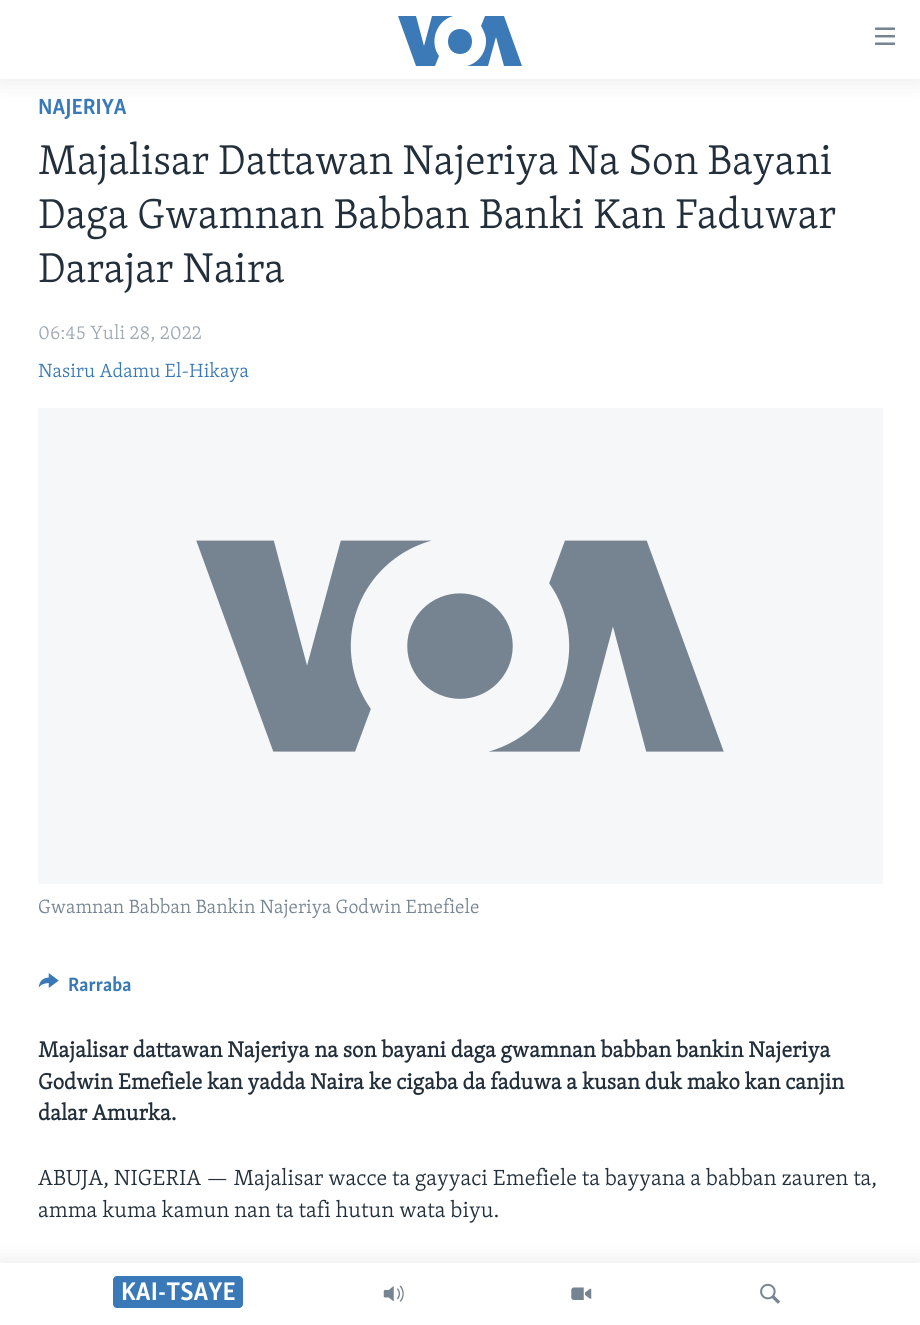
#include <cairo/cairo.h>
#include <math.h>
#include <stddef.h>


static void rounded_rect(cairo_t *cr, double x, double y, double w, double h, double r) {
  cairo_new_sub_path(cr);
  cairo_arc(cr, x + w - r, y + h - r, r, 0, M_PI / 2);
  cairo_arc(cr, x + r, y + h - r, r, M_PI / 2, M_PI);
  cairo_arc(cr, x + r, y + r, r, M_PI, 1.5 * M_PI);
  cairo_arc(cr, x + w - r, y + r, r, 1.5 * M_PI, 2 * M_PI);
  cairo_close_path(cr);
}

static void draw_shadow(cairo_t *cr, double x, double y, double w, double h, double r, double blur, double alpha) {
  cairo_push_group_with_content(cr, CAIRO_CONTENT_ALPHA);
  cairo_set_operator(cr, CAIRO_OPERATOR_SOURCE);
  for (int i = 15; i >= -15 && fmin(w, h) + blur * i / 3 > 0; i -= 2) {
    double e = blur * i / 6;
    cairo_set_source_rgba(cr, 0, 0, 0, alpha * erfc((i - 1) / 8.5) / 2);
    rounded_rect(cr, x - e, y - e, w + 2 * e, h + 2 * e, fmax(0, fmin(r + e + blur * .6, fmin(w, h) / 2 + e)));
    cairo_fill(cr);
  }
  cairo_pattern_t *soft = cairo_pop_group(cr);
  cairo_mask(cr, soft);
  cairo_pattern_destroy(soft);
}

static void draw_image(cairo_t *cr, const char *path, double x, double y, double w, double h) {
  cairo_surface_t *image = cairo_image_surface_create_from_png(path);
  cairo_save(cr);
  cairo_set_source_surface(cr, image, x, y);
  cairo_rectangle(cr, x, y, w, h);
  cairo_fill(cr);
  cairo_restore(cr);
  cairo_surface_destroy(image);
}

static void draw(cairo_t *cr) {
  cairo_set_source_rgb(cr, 1, 1, 1);
  cairo_paint(cr);
  cairo_set_source_rgb(cr, 246 / 255.0, 247 / 255.0, 248 / 255.0);
  cairo_rectangle(cr, 38, 408, 845, 476);
  cairo_fill(cr);
  draw_image(cr, "images/1.png", 196, 540, 528, 212);
  draw_image(cr, "images/2.png", 38, 973, 21, 15);
  cairo_set_source_rgb(cr, 0, 0, 0);
  draw_shadow(cr, 0, 0, 920, 79, 0, 12.5, 0.1);
  cairo_set_source_rgb(cr, 1, 1, 1);
  cairo_rectangle(cr, 0, 0, 920, 79);
  cairo_fill(cr);
  cairo_set_source_rgb(cr, 59 / 255.0, 121 / 255.0, 183 / 255.0);
  cairo_new_path(cr);
  cairo_move_to(cr, 439, 56);
  cairo_line_to(cr, 435, 66);
  cairo_line_to(cr, 416, 66);
  cairo_line_to(cr, 398, 16);
  cairo_line_to(cr, 416, 16);
  cairo_line_to(cr, 424, 46);
  cairo_line_to(cr, 432, 16);
  cairo_line_to(cr, 453, 16);
  cairo_curve_to(cr, 436, 21, 429, 42, 439, 56);
  cairo_close_path(cr);
  cairo_move_to(cr, 460, 29);
  cairo_curve_to(cr, 444, 29, 444, 54, 460, 54);
  cairo_curve_to(cr, 476, 54, 476, 29, 460, 29);
  cairo_close_path(cr);
  cairo_move_to(cr, 486, 41);
  cairo_curve_to(cr, 486, 53, 478, 63, 467, 66);
  cairo_line_to(cr, 488, 66);
  cairo_line_to(cr, 496, 37);
  cairo_line_to(cr, 504, 66);
  cairo_line_to(cr, 522, 66);
  cairo_line_to(cr, 504, 16);
  cairo_line_to(cr, 485, 16);
  cairo_line_to(cr, 481, 26);
  cairo_curve_to(cr, 484, 31, 486, 36, 486, 41);
  cairo_close_path(cr);
  cairo_fill(cr);
  draw_image(cr, "images/3.png", 875, 27, 20, 18);
  cairo_set_source_rgb(cr, 0, 0, 0);
  draw_shadow(cr, 0, 1263, 920, 62, 0, 12.5, 0.1);
  cairo_set_source_rgb(cr, 1, 1, 1);
  cairo_rectangle(cr, 0, 1263, 920, 62);
  cairo_fill(cr);
  cairo_set_source_rgb(cr, 58 / 255.0, 121 / 255.0, 183 / 255.0);
  rounded_rect(cr, 113, 1276, 130, 32, 4);
  cairo_fill(cr);
  draw_image(cr, "images/4.png", 383, 1285, 21, 17);
  draw_image(cr, "images/5.png", 571, 1287, 21, 13);
  draw_image(cr, "images/6.png", 760, 1283, 20, 21);
  cairo_select_font_face(cr, "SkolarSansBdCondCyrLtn", CAIRO_FONT_SLANT_NORMAL, CAIRO_FONT_WEIGHT_BOLD);
  cairo_set_font_size(cr, 22.5);
  cairo_move_to(cr, 38, 114);
  cairo_show_text(cr, "NAJERIYA");
  cairo_select_font_face(cr, "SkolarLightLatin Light", CAIRO_FONT_SLANT_NORMAL, CAIRO_FONT_WEIGHT_NORMAL);
  cairo_set_font_size(cr, 42.75);
  cairo_set_source_rgb(cr, 34 / 255.0, 47 / 255.0, 58 / 255.0);
  cairo_move_to(cr, 38, 174);
  cairo_show_text(cr, "Majalisar Dattawan Najeriya Na Son Bayani");
  cairo_move_to(cr, 38, 228);
  cairo_show_text(cr, "Daga Gwamnan Babban Banki Kan Faduwar");
  cairo_move_to(cr, 38, 282);
  cairo_show_text(cr, "Darajar Naira");
  cairo_set_font_size(cr, 19.7);
  cairo_set_source_rgb(cr, 161 / 255.0, 170 / 255.0, 180 / 255.0);
  cairo_move_to(cr, 38, 339);
  cairo_show_text(cr, "06:45 Yuli 28, 2022");
  cairo_set_source_rgb(cr, 58 / 255.0, 121 / 255.0, 183 / 255.0);
  cairo_move_to(cr, 38, 377);
  cairo_show_text(cr, "Nasiru Adamu El-Hikaya");
  cairo_set_source_rgb(cr, 118 / 255.0, 132 / 255.0, 146 / 255.0);
  cairo_move_to(cr, 38, 913);
  cairo_show_text(cr, "Gwamnan Babban Bankin Najeriya Godwin Emefiele");
  cairo_select_font_face(cr, "SkolarSansBdCondCyrLtn", CAIRO_FONT_SLANT_NORMAL, CAIRO_FONT_WEIGHT_BOLD);
  cairo_set_source_rgb(cr, 58 / 255.0, 121 / 255.0, 183 / 255.0);
  cairo_move_to(cr, 68, 991);
  cairo_show_text(cr, "Rarraba");
  cairo_select_font_face(cr, "SkolarLightLatin", CAIRO_FONT_SLANT_NORMAL, CAIRO_FONT_WEIGHT_BOLD);
  cairo_set_font_size(cr, 22.5);
  cairo_set_source_rgb(cr, 34 / 255.0, 47 / 255.0, 58 / 255.0);
  cairo_move_to(cr, 38, 1057);
  cairo_show_text(cr, "Majalisar dattawan Najeriya na son bayani daga gwamnan babban bankin Najeriya");
  cairo_move_to(cr, 38, 1089);
  cairo_show_text(cr, "Godwin Emefiele kan yadda Naira ke cigaba da faduwa a kusan duk mako kan canjin");
  cairo_move_to(cr, 38, 1120);
  cairo_show_text(cr, "dalar Amurka.");
  cairo_select_font_face(cr, "SkolarLightLatin Light", CAIRO_FONT_SLANT_NORMAL, CAIRO_FONT_WEIGHT_NORMAL);
  cairo_move_to(cr, 38, 1185);
  cairo_show_text(cr, "ABUJA, NIGERIA — Majalisar wacce ta gayyaci Emefiele ta bayyana a babban zauren ta,");
  cairo_move_to(cr, 38, 1217);
  cairo_show_text(cr, "amma kuma kamun nan ta tafi hutun wata biyu.");
  cairo_select_font_face(cr, "SkolarSansBdCondCyrLtn", CAIRO_FONT_SLANT_NORMAL, CAIRO_FONT_WEIGHT_BOLD);
  cairo_set_font_size(cr, 26.25);
  cairo_set_source_rgb(cr, 1, 1, 1);
  cairo_move_to(cr, 121, 1300);
  cairo_show_text(cr, "KAI-TSAYE");
}

int main(void) {
  cairo_surface_t *surface = cairo_image_surface_create(CAIRO_FORMAT_RGB24, 920, 1325);
  cairo_t *cr = cairo_create(surface);
  cairo_font_options_t *options = cairo_font_options_create();
  cairo_font_options_set_hint_metrics(options, CAIRO_HINT_METRICS_OFF);
  cairo_font_options_set_hint_style(options, CAIRO_HINT_STYLE_NONE);
  cairo_set_font_options(cr, options);
  cairo_set_miter_limit(cr, 4);
  draw(cr);
  cairo_surface_write_to_png(surface, "out.png");
  cairo_font_options_destroy(options);
  cairo_destroy(cr);
  cairo_surface_destroy(surface);
  return 0;
}
